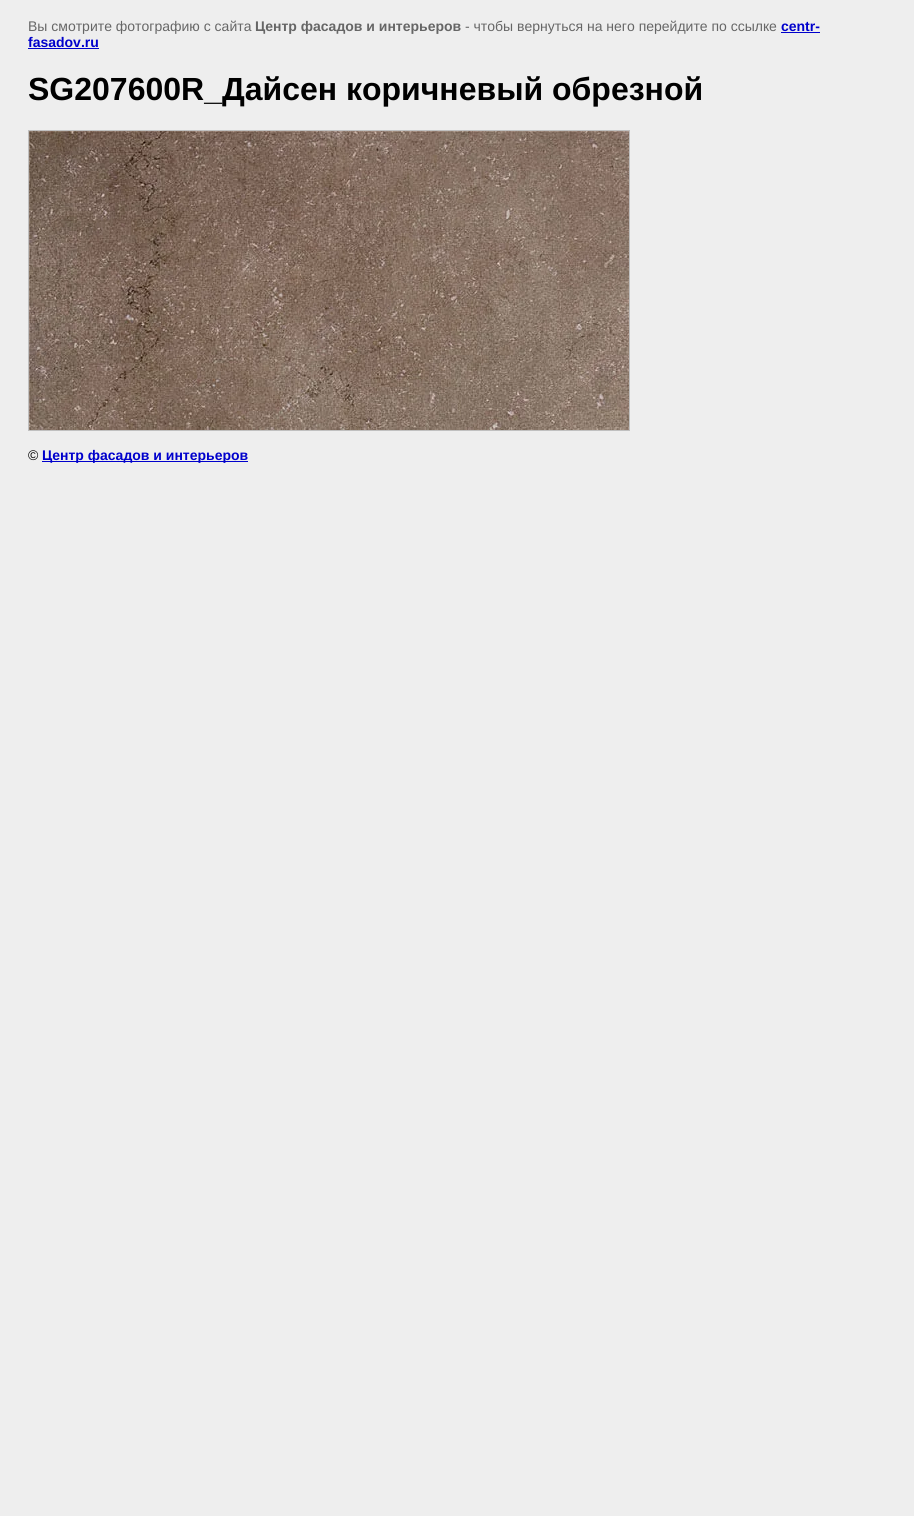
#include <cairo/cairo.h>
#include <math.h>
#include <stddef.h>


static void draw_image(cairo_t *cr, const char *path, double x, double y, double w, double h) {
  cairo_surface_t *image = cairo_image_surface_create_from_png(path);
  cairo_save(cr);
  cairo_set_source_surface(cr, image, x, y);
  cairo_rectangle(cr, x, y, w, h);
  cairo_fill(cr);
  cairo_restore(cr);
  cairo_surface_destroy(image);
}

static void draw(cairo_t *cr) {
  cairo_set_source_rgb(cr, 238 / 255.0, 238 / 255.0, 238 / 255.0);
  cairo_paint(cr);
  cairo_set_source_rgb(cr, 0, 0, 204 / 255.0);
  cairo_rectangle(cr, 781, 32, 39, 1);
  cairo_fill(cr);
  cairo_rectangle(cr, 28, 48, 71, 1);
  cairo_fill(cr);
  cairo_rectangle(cr, 28.5, 130.5, 601, 300);
  cairo_set_source_rgb(cr, 192 / 255.0, 192 / 255.0, 192 / 255.0);
  cairo_set_line_width(cr, 1);
  cairo_stroke(cr);
  draw_image(cr, "images/1.png", 29, 131, 600, 299);
  cairo_set_source_rgb(cr, 0, 0, 204 / 255.0);
  cairo_rectangle(cr, 42, 461, 206, 1);
  cairo_fill(cr);
  cairo_select_font_face(cr, "Liberation Sans", CAIRO_FONT_SLANT_NORMAL, CAIRO_FONT_WEIGHT_NORMAL);
  cairo_set_font_size(cr, 14);
  cairo_set_source_rgb(cr, 102 / 255.0, 102 / 255.0, 102 / 255.0);
  cairo_move_to(cr, 28, 31);
  cairo_show_text(cr, "Вы смотрите фотографию с сайта");
  cairo_select_font_face(cr, "Liberation Sans", CAIRO_FONT_SLANT_NORMAL, CAIRO_FONT_WEIGHT_BOLD);
  cairo_move_to(cr, 255, 31);
  cairo_show_text(cr, "Центр фасадов и интерьеров");
  cairo_select_font_face(cr, "Liberation Sans", CAIRO_FONT_SLANT_NORMAL, CAIRO_FONT_WEIGHT_NORMAL);
  cairo_move_to(cr, 465, 31);
  cairo_show_text(cr, "- чтобы вернуться на него перейдите по ссылке");
  cairo_select_font_face(cr, "Liberation Sans", CAIRO_FONT_SLANT_NORMAL, CAIRO_FONT_WEIGHT_BOLD);
  cairo_set_source_rgb(cr, 0, 0, 204 / 255.0);
  cairo_move_to(cr, 781, 31);
  cairo_show_text(cr, "centr-");
  cairo_move_to(cr, 28, 47);
  cairo_show_text(cr, "fasadov.ru");
  cairo_set_font_size(cr, 32);
  cairo_set_source_rgb(cr, 0, 0, 0);
  cairo_move_to(cr, 28, 100);
  cairo_show_text(cr, "SG207600R_Дайсен коричневый обрезной");
  cairo_select_font_face(cr, "Liberation Sans", CAIRO_FONT_SLANT_NORMAL, CAIRO_FONT_WEIGHT_NORMAL);
  cairo_set_font_size(cr, 14);
  cairo_move_to(cr, 28, 460);
  cairo_show_text(cr, "©");
  cairo_select_font_face(cr, "Liberation Sans", CAIRO_FONT_SLANT_NORMAL, CAIRO_FONT_WEIGHT_BOLD);
  cairo_set_source_rgb(cr, 0, 0, 204 / 255.0);
  cairo_move_to(cr, 42, 460);
  cairo_show_text(cr, "Центр фасадов и интерьеров");
}

int main(void) {
  cairo_surface_t *surface = cairo_image_surface_create(CAIRO_FORMAT_RGB24, 914, 1516);
  cairo_t *cr = cairo_create(surface);
  cairo_font_options_t *options = cairo_font_options_create();
  cairo_font_options_set_hint_metrics(options, CAIRO_HINT_METRICS_OFF);
  cairo_font_options_set_hint_style(options, CAIRO_HINT_STYLE_NONE);
  cairo_set_font_options(cr, options);
  cairo_set_miter_limit(cr, 4);
  draw(cr);
  cairo_surface_write_to_png(surface, "out.png");
  cairo_font_options_destroy(options);
  cairo_destroy(cr);
  cairo_surface_destroy(surface);
  return 0;
}
